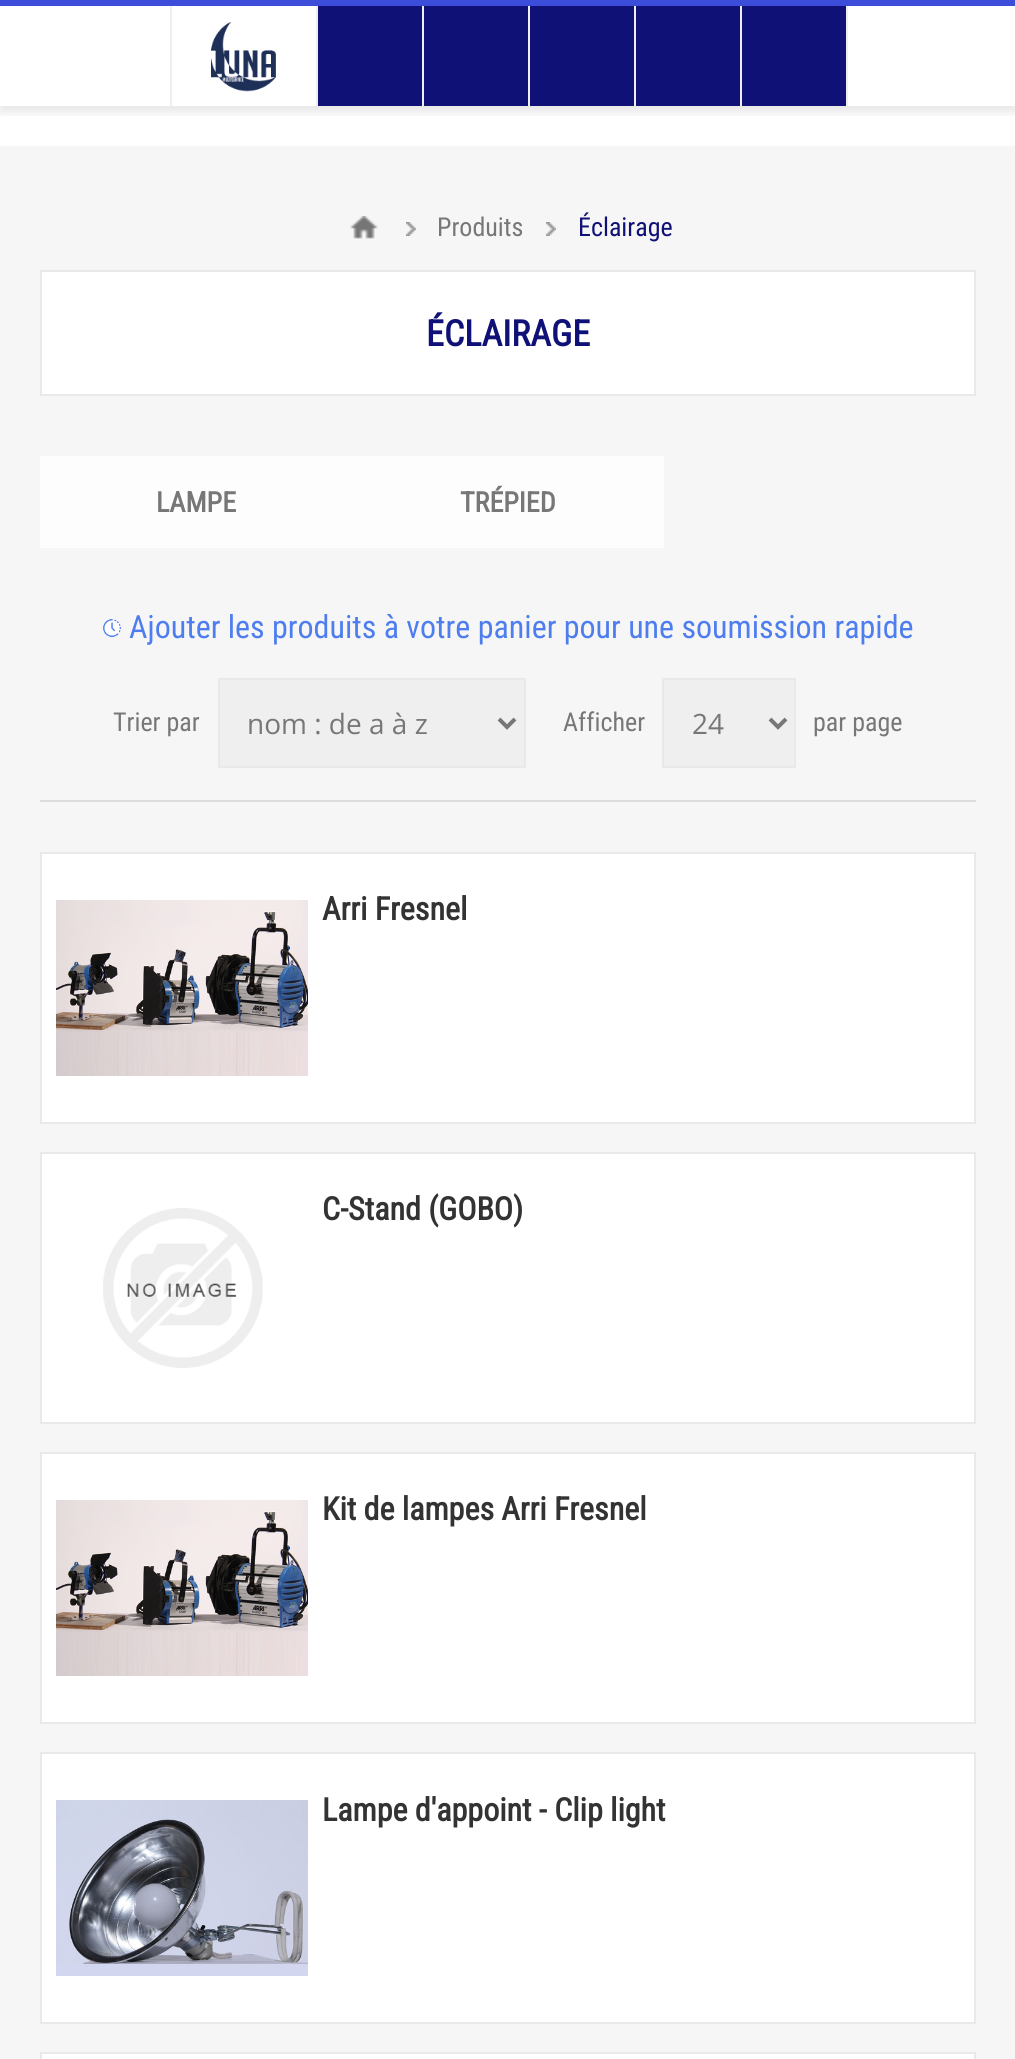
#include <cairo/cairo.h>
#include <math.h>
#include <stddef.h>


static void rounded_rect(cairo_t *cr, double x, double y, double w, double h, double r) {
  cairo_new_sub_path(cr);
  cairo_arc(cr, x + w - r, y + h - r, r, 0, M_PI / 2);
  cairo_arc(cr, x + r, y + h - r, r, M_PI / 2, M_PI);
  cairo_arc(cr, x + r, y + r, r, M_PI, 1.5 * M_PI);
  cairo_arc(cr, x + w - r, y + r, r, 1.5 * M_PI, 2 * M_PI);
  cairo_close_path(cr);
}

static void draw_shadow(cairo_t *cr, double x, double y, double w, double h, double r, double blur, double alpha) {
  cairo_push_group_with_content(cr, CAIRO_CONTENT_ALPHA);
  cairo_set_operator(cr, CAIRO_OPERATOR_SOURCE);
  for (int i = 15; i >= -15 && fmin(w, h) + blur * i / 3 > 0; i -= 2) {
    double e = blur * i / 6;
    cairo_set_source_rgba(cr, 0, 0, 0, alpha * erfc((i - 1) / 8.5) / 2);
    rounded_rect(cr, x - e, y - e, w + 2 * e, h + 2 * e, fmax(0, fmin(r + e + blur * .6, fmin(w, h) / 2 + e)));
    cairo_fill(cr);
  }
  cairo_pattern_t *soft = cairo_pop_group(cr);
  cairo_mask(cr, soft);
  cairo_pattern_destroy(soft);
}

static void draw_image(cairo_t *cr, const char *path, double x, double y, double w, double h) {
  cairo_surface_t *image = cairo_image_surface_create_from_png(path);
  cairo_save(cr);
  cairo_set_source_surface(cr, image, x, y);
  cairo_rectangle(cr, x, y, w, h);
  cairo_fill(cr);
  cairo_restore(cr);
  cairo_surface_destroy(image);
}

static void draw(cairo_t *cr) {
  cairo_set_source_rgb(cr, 1, 1, 1);
  cairo_paint(cr);
  cairo_set_source_rgb(cr, 246 / 255.0, 246 / 255.0, 246 / 255.0);
  cairo_rectangle(cr, 0, 146, 1015, 1913);
  cairo_fill(cr);
  cairo_save(cr);
  cairo_rectangle(cr, 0, 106, 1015, 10);
  cairo_clip(cr);
  cairo_set_source_rgb(cr, 0, 0, 0);
  draw_shadow(cr, 0, 6, 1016, 106, 0, 5, 0.1);
  cairo_restore(cr);
  cairo_set_source_rgb(cr, 59 / 255.0, 77 / 255.0, 217 / 255.0);
  cairo_rectangle(cr, 0, 0, 1015, 6);
  cairo_fill(cr);
  cairo_set_source_rgb(cr, 238 / 255.0, 238 / 255.0, 238 / 255.0);
  cairo_rectangle(cr, 316, 6, 2, 100);
  cairo_fill(cr);
  cairo_rectangle(cr, 170, 6, 2, 100);
  cairo_fill(cr);
  draw_image(cr, "images/1.png", 211, 22, 65, 70);
  cairo_set_source_rgb(cr, 16 / 255.0, 17 / 255.0, 119 / 255.0);
  cairo_rectangle(cr, 318, 6, 104, 100);
  cairo_fill(cr);
  cairo_set_source_rgb(cr, 238 / 255.0, 238 / 255.0, 238 / 255.0);
  cairo_rectangle(cr, 422, 6, 2, 100);
  cairo_fill(cr);
  cairo_set_source_rgb(cr, 16 / 255.0, 17 / 255.0, 119 / 255.0);
  cairo_rectangle(cr, 424, 6, 104, 100);
  cairo_fill(cr);
  cairo_set_source_rgb(cr, 238 / 255.0, 238 / 255.0, 238 / 255.0);
  cairo_rectangle(cr, 528, 6, 2, 100);
  cairo_fill(cr);
  cairo_set_source_rgb(cr, 16 / 255.0, 17 / 255.0, 119 / 255.0);
  cairo_rectangle(cr, 530, 6, 104, 100);
  cairo_fill(cr);
  cairo_set_source_rgb(cr, 238 / 255.0, 238 / 255.0, 238 / 255.0);
  cairo_rectangle(cr, 634, 6, 2, 100);
  cairo_fill(cr);
  cairo_set_source_rgb(cr, 16 / 255.0, 17 / 255.0, 119 / 255.0);
  cairo_rectangle(cr, 636, 6, 104, 100);
  cairo_fill(cr);
  cairo_set_source_rgb(cr, 238 / 255.0, 238 / 255.0, 238 / 255.0);
  cairo_rectangle(cr, 740, 6, 2, 100);
  cairo_fill(cr);
  cairo_set_source_rgb(cr, 16 / 255.0, 17 / 255.0, 119 / 255.0);
  cairo_rectangle(cr, 742, 6, 104, 100);
  cairo_fill(cr);
  cairo_set_source_rgb(cr, 238 / 255.0, 238 / 255.0, 238 / 255.0);
  cairo_rectangle(cr, 846, 6, 2, 100);
  cairo_fill(cr);
  draw_image(cr, "images/2.png", 350, 216, 28, 23);
  draw_image(cr, "images/3.png", 406, 222, 10, 14);
  draw_image(cr, "images/3.png", 546, 222, 10, 14);
  cairo_set_source_rgb(cr, 1, 1, 1);
  cairo_rectangle(cr, 41, 271, 934, 124);
  cairo_fill_preserve(cr);
  cairo_set_source_rgb(cr, 233 / 255.0, 233 / 255.0, 233 / 255.0);
  cairo_stroke(cr);
  cairo_set_source_rgb(cr, 253 / 255.0, 253 / 255.0, 253 / 255.0);
  cairo_rectangle(cr, 40, 456, 624, 92);
  cairo_fill(cr);
  draw_image(cr, "images/4.png", 103, 619, 19, 19);
  cairo_set_source_rgb(cr, 221 / 255.0, 221 / 255.0, 221 / 255.0);
  cairo_rectangle(cr, 40, 800, 936, 2);
  cairo_fill(cr);
  cairo_set_source_rgb(cr, 239 / 255.0, 239 / 255.0, 239 / 255.0);
  cairo_rectangle(cr, 219, 679, 306, 88);
  cairo_fill_preserve(cr);
  cairo_set_source_rgb(cr, 233 / 255.0, 233 / 255.0, 233 / 255.0);
  cairo_stroke(cr);
  cairo_new_path(cr);
  cairo_move_to(cr, 499, 719);
  cairo_line_to(cr, 507, 727);
  cairo_line_to(cr, 515, 719);
  cairo_set_source_rgb(cr, 119 / 255.0, 119 / 255.0, 119 / 255.0);
  cairo_set_line_width(cr, 4);
  cairo_stroke(cr);
  cairo_set_source_rgb(cr, 239 / 255.0, 239 / 255.0, 239 / 255.0);
  cairo_rectangle(cr, 663, 679, 132, 88);
  cairo_fill_preserve(cr);
  cairo_set_source_rgb(cr, 233 / 255.0, 233 / 255.0, 233 / 255.0);
  cairo_set_line_width(cr, 2);
  cairo_stroke(cr);
  cairo_new_path(cr);
  cairo_move_to(cr, 770, 719);
  cairo_line_to(cr, 778, 727);
  cairo_line_to(cr, 786, 719);
  cairo_set_source_rgb(cr, 119 / 255.0, 119 / 255.0, 119 / 255.0);
  cairo_set_line_width(cr, 4);
  cairo_stroke(cr);
  cairo_set_source_rgb(cr, 1, 1, 1);
  cairo_rectangle(cr, 41, 853, 934, 270);
  cairo_fill_preserve(cr);
  cairo_set_source_rgb(cr, 233 / 255.0, 233 / 255.0, 233 / 255.0);
  cairo_set_line_width(cr, 2);
  cairo_stroke(cr);
  draw_image(cr, "images/5.png", 56, 900, 252, 176);
  cairo_set_source_rgb(cr, 1, 1, 1);
  cairo_rectangle(cr, 41, 1153, 934, 270);
  cairo_fill_preserve(cr);
  cairo_set_source_rgb(cr, 233 / 255.0, 233 / 255.0, 233 / 255.0);
  cairo_stroke(cr);
  draw_image(cr, "images/6.png", 103, 1208, 160, 160);
  cairo_set_source_rgb(cr, 1, 1, 1);
  cairo_rectangle(cr, 41, 1453, 934, 270);
  cairo_fill_preserve(cr);
  cairo_set_source_rgb(cr, 233 / 255.0, 233 / 255.0, 233 / 255.0);
  cairo_stroke(cr);
  draw_image(cr, "images/5.png", 56, 1500, 252, 176);
  cairo_set_source_rgb(cr, 1, 1, 1);
  cairo_rectangle(cr, 41, 1753, 934, 270);
  cairo_fill_preserve(cr);
  cairo_set_source_rgb(cr, 233 / 255.0, 233 / 255.0, 233 / 255.0);
  cairo_stroke(cr);
  draw_image(cr, "images/7.png", 56, 1800, 252, 176);
  cairo_set_source_rgb(cr, 1, 1, 1);
  cairo_rectangle(cr, 41, 2053, 934, 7);
  cairo_fill_preserve(cr);
  cairo_set_source_rgb(cr, 233 / 255.0, 233 / 255.0, 233 / 255.0);
  cairo_stroke(cr);
  cairo_select_font_face(cr, "Roboto Condensed", CAIRO_FONT_SLANT_NORMAL, CAIRO_FONT_WEIGHT_NORMAL);
  cairo_set_font_size(cr, 26);
  cairo_set_source_rgb(cr, 119 / 255.0, 119 / 255.0, 119 / 255.0);
  cairo_move_to(cr, 437, 236);
  cairo_show_text(cr, "Produits");
  cairo_set_source_rgb(cr, 16 / 255.0, 17 / 255.0, 119 / 255.0);
  cairo_move_to(cr, 578, 236);
  cairo_show_text(cr, "Éclairage");
  cairo_select_font_face(cr, "Roboto Condensed", CAIRO_FONT_SLANT_NORMAL, CAIRO_FONT_WEIGHT_BOLD);
  cairo_set_font_size(cr, 36);
  cairo_move_to(cr, 426, 346);
  cairo_show_text(cr, "ÉCLAIRAGE");
  cairo_set_font_size(cr, 28);
  cairo_set_source_rgb(cr, 119 / 255.0, 119 / 255.0, 119 / 255.0);
  cairo_move_to(cr, 156, 512);
  cairo_show_text(cr, "LAMPE");
  cairo_move_to(cr, 460, 512);
  cairo_show_text(cr, "TRÉPIED");
  cairo_select_font_face(cr, "Roboto Condensed", CAIRO_FONT_SLANT_NORMAL, CAIRO_FONT_WEIGHT_NORMAL);
  cairo_set_font_size(cr, 32);
  cairo_set_source_rgb(cr, 78 / 255.0, 125 / 255.0, 239 / 255.0);
  cairo_move_to(cr, 129, 638);
  cairo_show_text(cr, "Ajouter les produits à votre panier pour une soumission rapide");
  cairo_set_font_size(cr, 26);
  cairo_set_source_rgb(cr, 119 / 255.0, 119 / 255.0, 119 / 255.0);
  cairo_move_to(cr, 113, 731);
  cairo_show_text(cr, "Trier par");
  cairo_select_font_face(cr, "Open Sans", CAIRO_FONT_SLANT_NORMAL, CAIRO_FONT_WEIGHT_NORMAL);
  cairo_set_font_size(cr, 28);
  cairo_move_to(cr, 247, 734);
  cairo_show_text(cr, "nom : de a à z");
  cairo_select_font_face(cr, "Roboto Condensed", CAIRO_FONT_SLANT_NORMAL, CAIRO_FONT_WEIGHT_NORMAL);
  cairo_set_font_size(cr, 26);
  cairo_move_to(cr, 563, 731);
  cairo_show_text(cr, "Afficher");
  cairo_select_font_face(cr, "Open Sans", CAIRO_FONT_SLANT_NORMAL, CAIRO_FONT_WEIGHT_NORMAL);
  cairo_set_font_size(cr, 28);
  cairo_move_to(cr, 692, 734);
  cairo_show_text(cr, "24");
  cairo_select_font_face(cr, "Roboto Condensed", CAIRO_FONT_SLANT_NORMAL, CAIRO_FONT_WEIGHT_NORMAL);
  cairo_set_font_size(cr, 26);
  cairo_move_to(cr, 813, 731);
  cairo_show_text(cr, "par page");
  cairo_select_font_face(cr, "Roboto Condensed", CAIRO_FONT_SLANT_NORMAL, CAIRO_FONT_WEIGHT_BOLD);
  cairo_set_font_size(cr, 32);
  cairo_set_source_rgb(cr, 51 / 255.0, 51 / 255.0, 51 / 255.0);
  cairo_move_to(cr, 322, 920);
  cairo_show_text(cr, "Arri Fresnel");
  cairo_move_to(cr, 322, 1220);
  cairo_show_text(cr, "C-Stand (GOBO)");
  cairo_move_to(cr, 322, 1520);
  cairo_show_text(cr, "Kit de lampes Arri Fresnel");
  cairo_move_to(cr, 322, 1821);
  cairo_show_text(cr, "Lampe d'appoint - Clip light");
}

int main(void) {
  cairo_surface_t *surface = cairo_image_surface_create(CAIRO_FORMAT_RGB24, 1015, 2059);
  cairo_t *cr = cairo_create(surface);
  cairo_font_options_t *options = cairo_font_options_create();
  cairo_font_options_set_hint_metrics(options, CAIRO_HINT_METRICS_OFF);
  cairo_font_options_set_hint_style(options, CAIRO_HINT_STYLE_NONE);
  cairo_set_font_options(cr, options);
  cairo_set_miter_limit(cr, 4);
  draw(cr);
  cairo_surface_write_to_png(surface, "out.png");
  cairo_font_options_destroy(options);
  cairo_destroy(cr);
  cairo_surface_destroy(surface);
  return 0;
}
